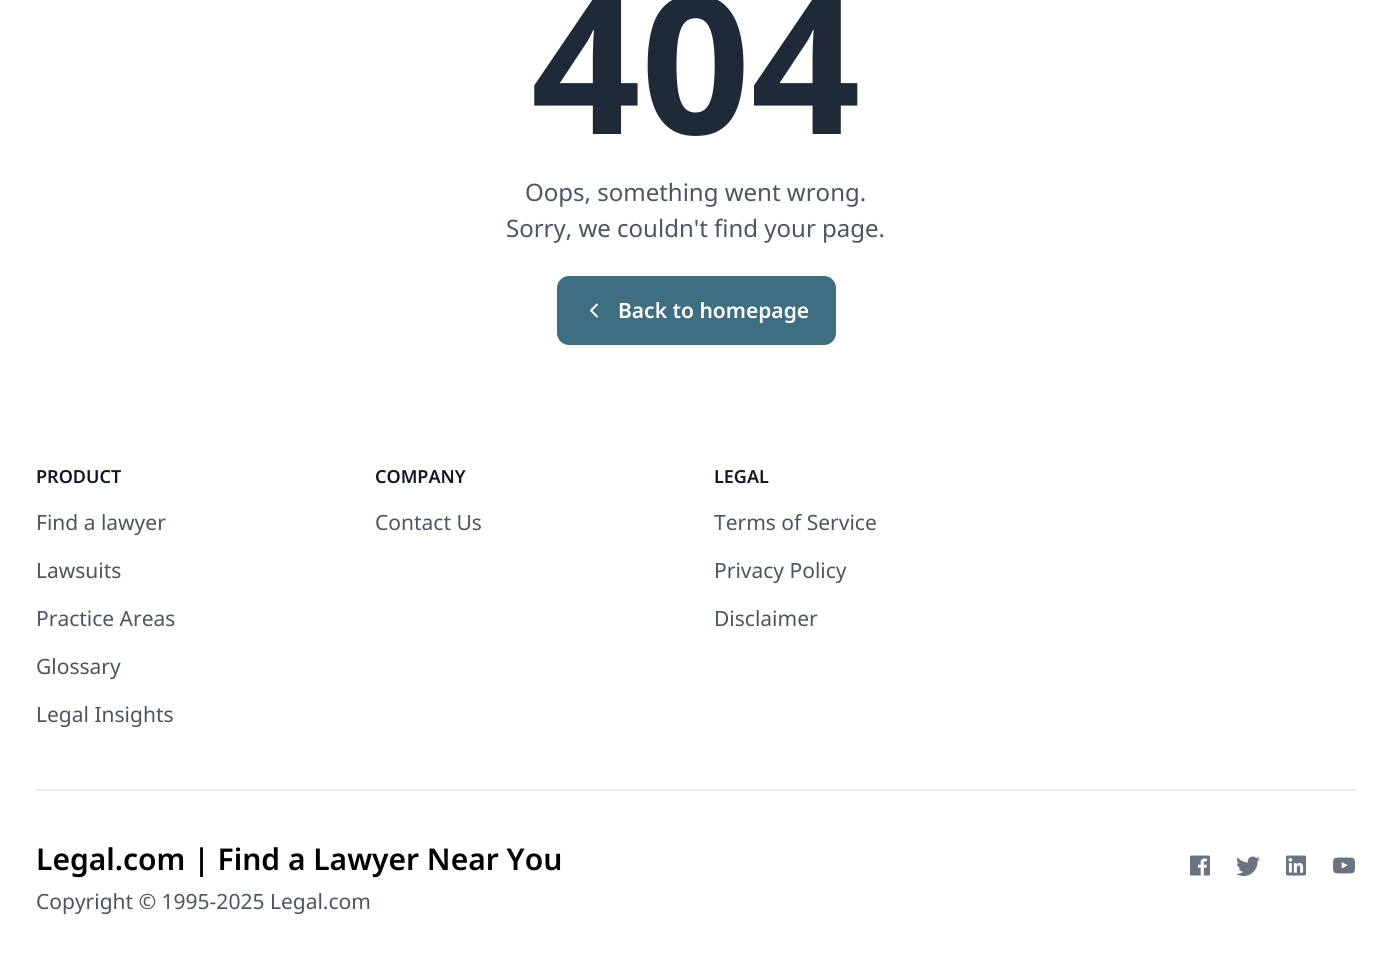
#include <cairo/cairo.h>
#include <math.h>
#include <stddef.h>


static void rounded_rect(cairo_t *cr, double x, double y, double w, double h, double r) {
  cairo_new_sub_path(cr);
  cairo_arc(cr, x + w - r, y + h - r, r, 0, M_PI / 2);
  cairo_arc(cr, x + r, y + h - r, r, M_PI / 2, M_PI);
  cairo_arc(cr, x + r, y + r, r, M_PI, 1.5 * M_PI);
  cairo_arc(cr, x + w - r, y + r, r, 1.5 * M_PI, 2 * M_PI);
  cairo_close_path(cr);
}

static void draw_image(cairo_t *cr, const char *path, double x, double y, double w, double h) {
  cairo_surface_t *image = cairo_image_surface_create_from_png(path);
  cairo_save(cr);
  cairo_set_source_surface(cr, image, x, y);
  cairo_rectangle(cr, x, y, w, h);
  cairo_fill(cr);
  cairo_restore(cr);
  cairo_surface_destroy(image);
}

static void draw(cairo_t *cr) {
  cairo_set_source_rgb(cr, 1, 1, 1);
  cairo_paint(cr);
  cairo_set_source_rgb(cr, 62 / 255.0, 110 / 255.0, 127 / 255.0);
  rounded_rect(cr, 557, 276, 279, 69, 12);
  cairo_fill(cr);
  cairo_new_path(cr);
  cairo_move_to(cr, 597, 316.5);
  cairo_line_to(cr, 591, 310.5);
  cairo_line_to(cr, 597, 304.5);
  cairo_set_source_rgb(cr, 1, 1, 1);
  cairo_set_line_cap(cr, CAIRO_LINE_CAP_ROUND);
  cairo_set_line_join(cr, CAIRO_LINE_JOIN_ROUND);
  cairo_stroke(cr);
  cairo_set_source_rgb(cr, 229 / 255.0, 231 / 255.0, 235 / 255.0);
  cairo_rectangle(cr, 36, 789, 1320, 2);
  cairo_fill(cr);
  draw_image(cr, "images/1.png", 1190, 855, 20, 21);
  draw_image(cr, "images/2.png", 1236, 856, 24, 20);
  draw_image(cr, "images/3.png", 1286, 855, 20, 21);
  draw_image(cr, "images/4.png", 1333, 857, 22, 17);
  cairo_select_font_face(cr, "Noto Sans", CAIRO_FONT_SLANT_NORMAL, CAIRO_FONT_WEIGHT_BOLD);
  cairo_set_font_size(cr, 192);
  cairo_set_source_rgb(cr, 31 / 255.0, 41 / 255.0, 55 / 255.0);
  cairo_move_to(cr, 531, 134);
  cairo_show_text(cr, "404");
  cairo_select_font_face(cr, "Noto Sans", CAIRO_FONT_SLANT_NORMAL, CAIRO_FONT_WEIGHT_NORMAL);
  cairo_set_font_size(cr, 24);
  cairo_set_source_rgb(cr, 75 / 255.0, 85 / 255.0, 99 / 255.0);
  cairo_move_to(cr, 525, 201);
  cairo_show_text(cr, "Oops, something went wrong.");
  cairo_move_to(cr, 506, 237);
  cairo_show_text(cr, "Sorry, we couldn't find your page.");
  cairo_select_font_face(cr, "Noto Sans SemiBold", CAIRO_FONT_SLANT_NORMAL, CAIRO_FONT_WEIGHT_NORMAL);
  cairo_set_font_size(cr, 21);
  cairo_set_source_rgb(cr, 1, 1, 1);
  cairo_move_to(cr, 618, 318);
  cairo_show_text(cr, "Back to homepage");
  cairo_set_font_size(cr, 18);
  cairo_set_source_rgb(cr, 17 / 255.0, 24 / 255.0, 39 / 255.0);
  cairo_move_to(cr, 36, 483);
  cairo_show_text(cr, "PRODUCT");
  cairo_select_font_face(cr, "Noto Sans", CAIRO_FONT_SLANT_NORMAL, CAIRO_FONT_WEIGHT_NORMAL);
  cairo_set_font_size(cr, 21);
  cairo_set_source_rgb(cr, 75 / 255.0, 85 / 255.0, 99 / 255.0);
  cairo_move_to(cr, 36, 530);
  cairo_show_text(cr, "Find a lawyer");
  cairo_move_to(cr, 36, 578);
  cairo_show_text(cr, "Lawsuits");
  cairo_move_to(cr, 36, 626);
  cairo_show_text(cr, "Practice Areas");
  cairo_move_to(cr, 36, 674);
  cairo_show_text(cr, "Glossary");
  cairo_move_to(cr, 36, 722);
  cairo_show_text(cr, "Legal Insights");
  cairo_select_font_face(cr, "Noto Sans SemiBold", CAIRO_FONT_SLANT_NORMAL, CAIRO_FONT_WEIGHT_NORMAL);
  cairo_set_font_size(cr, 18);
  cairo_set_source_rgb(cr, 17 / 255.0, 24 / 255.0, 39 / 255.0);
  cairo_move_to(cr, 375, 483);
  cairo_show_text(cr, "COMPANY");
  cairo_select_font_face(cr, "Noto Sans", CAIRO_FONT_SLANT_NORMAL, CAIRO_FONT_WEIGHT_NORMAL);
  cairo_set_font_size(cr, 21);
  cairo_set_source_rgb(cr, 75 / 255.0, 85 / 255.0, 99 / 255.0);
  cairo_move_to(cr, 375, 530);
  cairo_show_text(cr, "Contact Us");
  cairo_select_font_face(cr, "Noto Sans SemiBold", CAIRO_FONT_SLANT_NORMAL, CAIRO_FONT_WEIGHT_NORMAL);
  cairo_set_font_size(cr, 18);
  cairo_set_source_rgb(cr, 17 / 255.0, 24 / 255.0, 39 / 255.0);
  cairo_move_to(cr, 714, 483);
  cairo_show_text(cr, "LEGAL");
  cairo_select_font_face(cr, "Noto Sans", CAIRO_FONT_SLANT_NORMAL, CAIRO_FONT_WEIGHT_NORMAL);
  cairo_set_font_size(cr, 21);
  cairo_set_source_rgb(cr, 75 / 255.0, 85 / 255.0, 99 / 255.0);
  cairo_move_to(cr, 714, 530);
  cairo_show_text(cr, "Terms of Service");
  cairo_move_to(cr, 714, 578);
  cairo_show_text(cr, "Privacy Policy");
  cairo_move_to(cr, 714, 626);
  cairo_show_text(cr, "Disclaimer");
  cairo_select_font_face(cr, "Noto Sans SemiBold", CAIRO_FONT_SLANT_NORMAL, CAIRO_FONT_WEIGHT_NORMAL);
  cairo_set_font_size(cr, 30);
  cairo_set_source_rgb(cr, 0, 0, 0);
  cairo_move_to(cr, 36, 870);
  cairo_show_text(cr, "Legal.com | Find a Lawyer Near You");
  cairo_select_font_face(cr, "Noto Sans", CAIRO_FONT_SLANT_NORMAL, CAIRO_FONT_WEIGHT_NORMAL);
  cairo_set_font_size(cr, 21);
  cairo_set_source_rgb(cr, 75 / 255.0, 85 / 255.0, 99 / 255.0);
  cairo_move_to(cr, 36, 909);
  cairo_show_text(cr, "Copyright © 1995-2025 Legal.com");
}

int main(void) {
  cairo_surface_t *surface = cairo_image_surface_create(CAIRO_FORMAT_RGB24, 1392, 971);
  cairo_t *cr = cairo_create(surface);
  cairo_font_options_t *options = cairo_font_options_create();
  cairo_font_options_set_hint_metrics(options, CAIRO_HINT_METRICS_OFF);
  cairo_font_options_set_hint_style(options, CAIRO_HINT_STYLE_NONE);
  cairo_set_font_options(cr, options);
  cairo_set_miter_limit(cr, 4);
  draw(cr);
  cairo_surface_write_to_png(surface, "out.png");
  cairo_font_options_destroy(options);
  cairo_destroy(cr);
  cairo_surface_destroy(surface);
  return 0;
}
